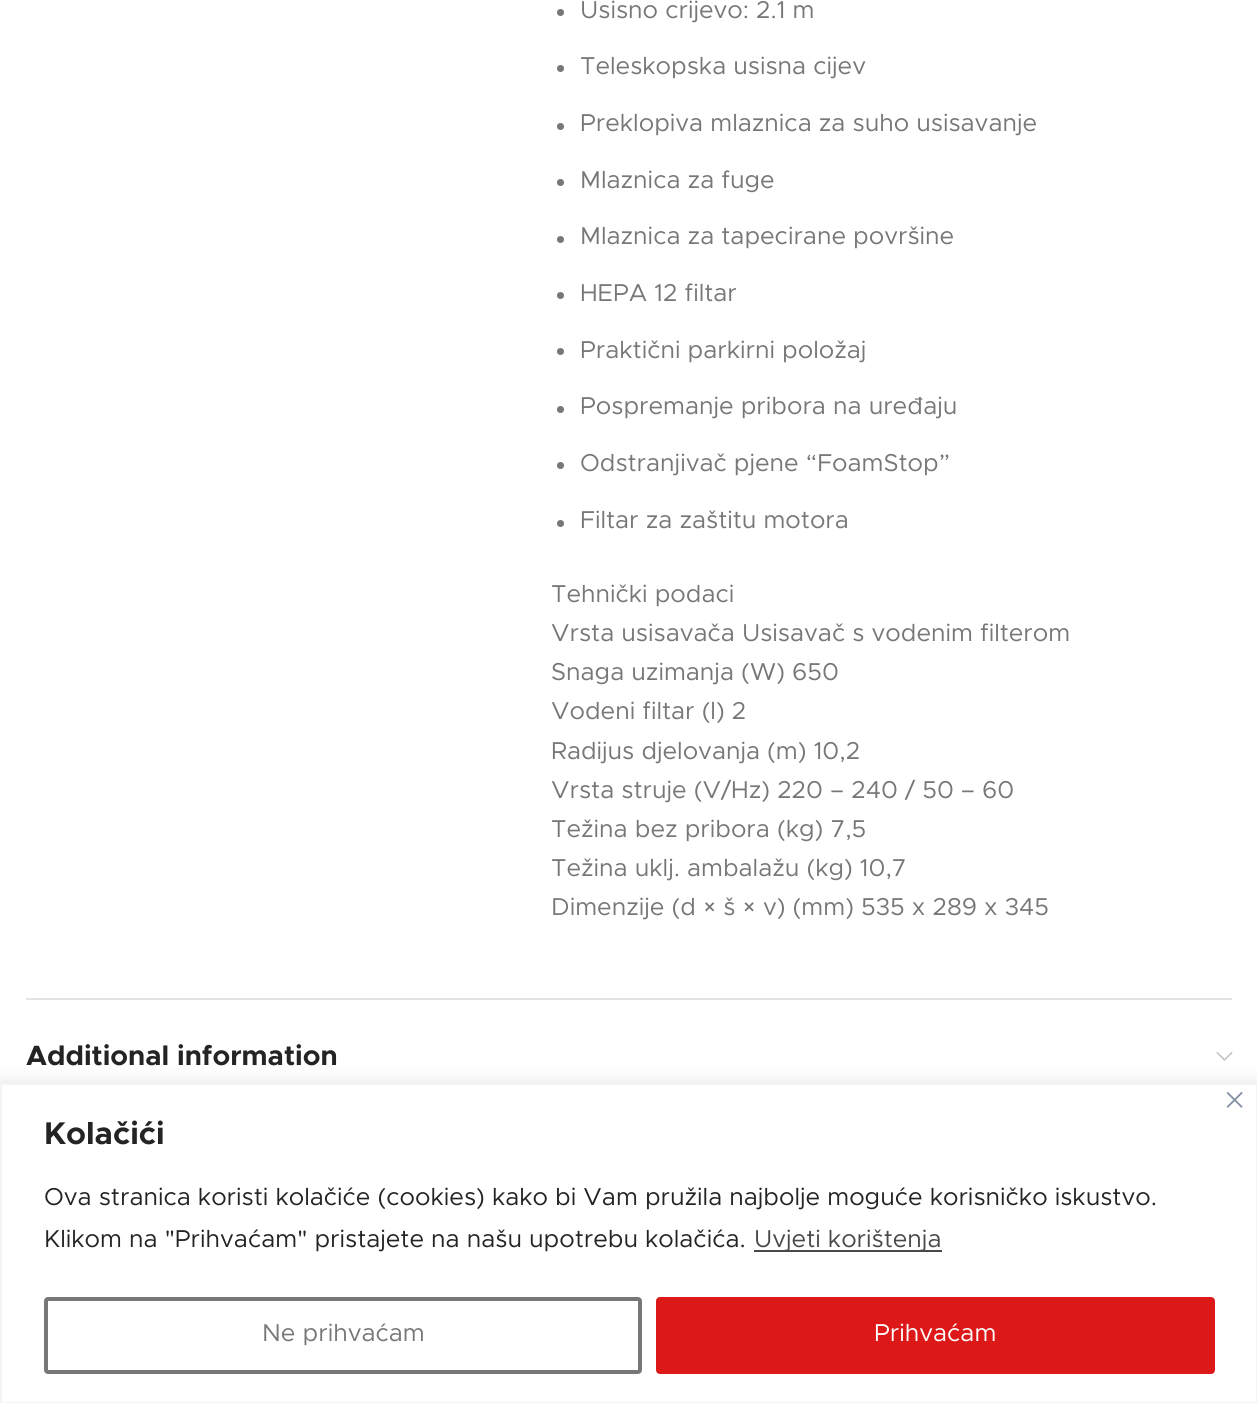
#include <cairo/cairo.h>
#include <math.h>
#include <stddef.h>


static void rounded_rect(cairo_t *cr, double x, double y, double w, double h, double r) {
  cairo_new_sub_path(cr);
  cairo_arc(cr, x + w - r, y + h - r, r, 0, M_PI / 2);
  cairo_arc(cr, x + r, y + h - r, r, M_PI / 2, M_PI);
  cairo_arc(cr, x + r, y + r, r, M_PI, 1.5 * M_PI);
  cairo_arc(cr, x + w - r, y + r, r, 1.5 * M_PI, 2 * M_PI);
  cairo_close_path(cr);
}

static void draw_shadow(cairo_t *cr, double x, double y, double w, double h, double r, double blur, double alpha) {
  cairo_push_group_with_content(cr, CAIRO_CONTENT_ALPHA);
  cairo_set_operator(cr, CAIRO_OPERATOR_SOURCE);
  for (int i = 15; i >= -15 && fmin(w, h) + blur * i / 3 > 0; i -= 2) {
    double e = blur * i / 6;
    cairo_set_source_rgba(cr, 0, 0, 0, alpha * erfc((i - 1) / 8.5) / 2);
    rounded_rect(cr, x - e, y - e, w + 2 * e, h + 2 * e, fmax(0, fmin(r + e + blur * .6, fmin(w, h) / 2 + e)));
    cairo_fill(cr);
  }
  cairo_pattern_t *soft = cairo_pop_group(cr);
  cairo_mask(cr, soft);
  cairo_pattern_destroy(soft);
}

static void draw_image(cairo_t *cr, const char *path, double x, double y, double w, double h) {
  cairo_surface_t *image = cairo_image_surface_create_from_png(path);
  cairo_save(cr);
  cairo_set_source_surface(cr, image, x, y);
  cairo_rectangle(cr, x, y, w, h);
  cairo_fill(cr);
  cairo_restore(cr);
  cairo_surface_destroy(image);
}

static void draw(cairo_t *cr) {
  cairo_set_source_rgb(cr, 1, 1, 1);
  cairo_paint(cr);
  cairo_set_source_rgb(cr, 228 / 255.0, 228 / 255.0, 228 / 255.0);
  cairo_rectangle(cr, 26, 998, 1206, 2);
  cairo_fill(cr);
  cairo_set_source_rgb(cr, 119 / 255.0, 119 / 255.0, 119 / 255.0);
  cairo_arc(cr, 560.5, 12.5, 3.5, 0, 2 * M_PI);
  cairo_fill(cr);
  cairo_arc(cr, 560.5, 68.5, 3.5, 0, 2 * M_PI);
  cairo_fill(cr);
  cairo_arc(cr, 560.5, 126.5, 3.5, 0, 2 * M_PI);
  cairo_fill(cr);
  cairo_arc(cr, 560.5, 182.5, 3.5, 0, 2 * M_PI);
  cairo_fill(cr);
  cairo_arc(cr, 560.5, 239.5, 3.5, 0, 2 * M_PI);
  cairo_fill(cr);
  cairo_arc(cr, 560.5, 295.5, 3.5, 0, 2 * M_PI);
  cairo_fill(cr);
  cairo_arc(cr, 560.5, 351.5, 3.5, 0, 2 * M_PI);
  cairo_fill(cr);
  cairo_arc(cr, 560.5, 409.5, 3.5, 0, 2 * M_PI);
  cairo_fill(cr);
  cairo_arc(cr, 560.5, 465.5, 3.5, 0, 2 * M_PI);
  cairo_fill(cr);
  cairo_arc(cr, 560.5, 523.5, 3.5, 0, 2 * M_PI);
  cairo_fill(cr);
  draw_image(cr, "images/1.png", 1216, 1052, 17, 9);
  cairo_set_source_rgb(cr, 172 / 255.0, 171 / 255.0, 171 / 255.0);
  draw_shadow(cr, 0, 1082, 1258, 320, 0, 9, 0.3);
  cairo_set_source_rgb(cr, 1, 1, 1);
  cairo_rectangle(cr, 1, 1084, 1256, 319);
  cairo_fill_preserve(cr);
  cairo_set_source_rgb(cr, 244 / 255.0, 244 / 255.0, 244 / 255.0);
  cairo_stroke(cr);
  draw_image(cr, "images/2.png", 1227, 1092, 16, 16);
  cairo_set_source_rgb(cr, 73 / 255.0, 73 / 255.0, 73 / 255.0);
  cairo_rectangle(cr, 754, 1250, 188, 2);
  cairo_fill(cr);
  rounded_rect(cr, 46, 1299, 594, 73, 2);
  cairo_set_source_rgb(cr, 119 / 255.0, 119 / 255.0, 119 / 255.0);
  cairo_set_line_width(cr, 4);
  cairo_stroke(cr);
  cairo_set_source_rgb(cr, 220 / 255.0, 24 / 255.0, 24 / 255.0);
  rounded_rect(cr, 658, 1299, 555, 73, 2);
  cairo_fill_preserve(cr);
  cairo_stroke(cr);
  cairo_select_font_face(cr, "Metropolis", CAIRO_FONT_SLANT_NORMAL, CAIRO_FONT_WEIGHT_NORMAL);
  cairo_set_font_size(cr, 24.5);
  cairo_set_source_rgb(cr, 119 / 255.0, 119 / 255.0, 119 / 255.0);
  cairo_move_to(cr, 580, 18);
  cairo_show_text(cr, "Usisno crijevo: 2.1 m");
  cairo_move_to(cr, 580, 74);
  cairo_show_text(cr, "Teleskopska usisna cijev");
  cairo_move_to(cr, 580, 131);
  cairo_show_text(cr, "Preklopiva mlaznica za suho usisavanje");
  cairo_move_to(cr, 580, 188);
  cairo_show_text(cr, "Mlaznica za fuge");
  cairo_move_to(cr, 580, 244);
  cairo_show_text(cr, "Mlaznica za tapecirane površine");
  cairo_move_to(cr, 580, 301);
  cairo_show_text(cr, "HEPA 12 filtar");
  cairo_move_to(cr, 580, 358);
  cairo_show_text(cr, "Praktični parkirni položaj");
  cairo_move_to(cr, 580, 414);
  cairo_show_text(cr, "Pospremanje pribora na uređaju");
  cairo_move_to(cr, 580, 471);
  cairo_show_text(cr, "Odstranjivač pjene “FoamStop”");
  cairo_move_to(cr, 580, 528);
  cairo_show_text(cr, "Filtar za zaštitu motora");
  cairo_move_to(cr, 551, 602);
  cairo_show_text(cr, "Tehnički podaci");
  cairo_move_to(cr, 551, 641);
  cairo_show_text(cr, "Vrsta usisavača Usisavač s vodenim filterom");
  cairo_move_to(cr, 551, 680);
  cairo_show_text(cr, "Snaga uzimanja (W) 650");
  cairo_move_to(cr, 551, 719);
  cairo_show_text(cr, "Vodeni filtar (l) 2");
  cairo_move_to(cr, 551, 759);
  cairo_show_text(cr, "Radijus djelovanja (m) 10,2");
  cairo_move_to(cr, 551, 798);
  cairo_show_text(cr, "Vrsta struje (V/Hz) 220 – 240 / 50 – 60");
  cairo_move_to(cr, 551, 837);
  cairo_show_text(cr, "Težina bez pribora (kg) 7,5");
  cairo_move_to(cr, 551, 876);
  cairo_show_text(cr, "Težina uklj. ambalažu (kg) 10,7");
  cairo_move_to(cr, 551, 915);
  cairo_show_text(cr, "Dimenzije (d × š × v) (mm) 535 x 289 x 345");
  cairo_select_font_face(cr, "Metropolis", CAIRO_FONT_SLANT_NORMAL, CAIRO_FONT_WEIGHT_BOLD);
  cairo_set_font_size(cr, 28);
  cairo_set_source_rgb(cr, 36 / 255.0, 36 / 255.0, 36 / 255.0);
  cairo_move_to(cr, 26, 1065);
  cairo_show_text(cr, "Additional information");
  cairo_set_font_size(cr, 31.5);
  cairo_move_to(cr, 44, 1144);
  cairo_show_text(cr, "Kolačići");
  cairo_select_font_face(cr, "Metropolis", CAIRO_FONT_SLANT_NORMAL, CAIRO_FONT_WEIGHT_NORMAL);
  cairo_set_font_size(cr, 24.5);
  cairo_move_to(cr, 44, 1205);
  cairo_show_text(cr, "Ova stranica koristi kolačiće (cookies) kako bi Vam pružila najbolje moguće korisničko iskustvo.");
  cairo_move_to(cr, 44, 1247);
  cairo_show_text(cr, "Klikom na \"Prihvaćam\" pristajete na našu upotrebu kolačića.");
  cairo_set_source_rgb(cr, 73 / 255.0, 73 / 255.0, 73 / 255.0);
  cairo_move_to(cr, 754, 1247);
  cairo_show_text(cr, "Uvjeti korištenja");
  cairo_set_source_rgb(cr, 119 / 255.0, 119 / 255.0, 119 / 255.0);
  cairo_move_to(cr, 262, 1341);
  cairo_show_text(cr, "Ne prihvaćam");
  cairo_set_source_rgb(cr, 1, 1, 1);
  cairo_move_to(cr, 874, 1341);
  cairo_show_text(cr, "Prihvaćam");
}

int main(void) {
  cairo_surface_t *surface = cairo_image_surface_create(CAIRO_FORMAT_RGB24, 1257, 1403);
  cairo_t *cr = cairo_create(surface);
  cairo_font_options_t *options = cairo_font_options_create();
  cairo_font_options_set_hint_metrics(options, CAIRO_HINT_METRICS_OFF);
  cairo_font_options_set_hint_style(options, CAIRO_HINT_STYLE_NONE);
  cairo_set_font_options(cr, options);
  cairo_set_miter_limit(cr, 4);
  draw(cr);
  cairo_surface_write_to_png(surface, "out.png");
  cairo_font_options_destroy(options);
  cairo_destroy(cr);
  cairo_surface_destroy(surface);
  return 0;
}
